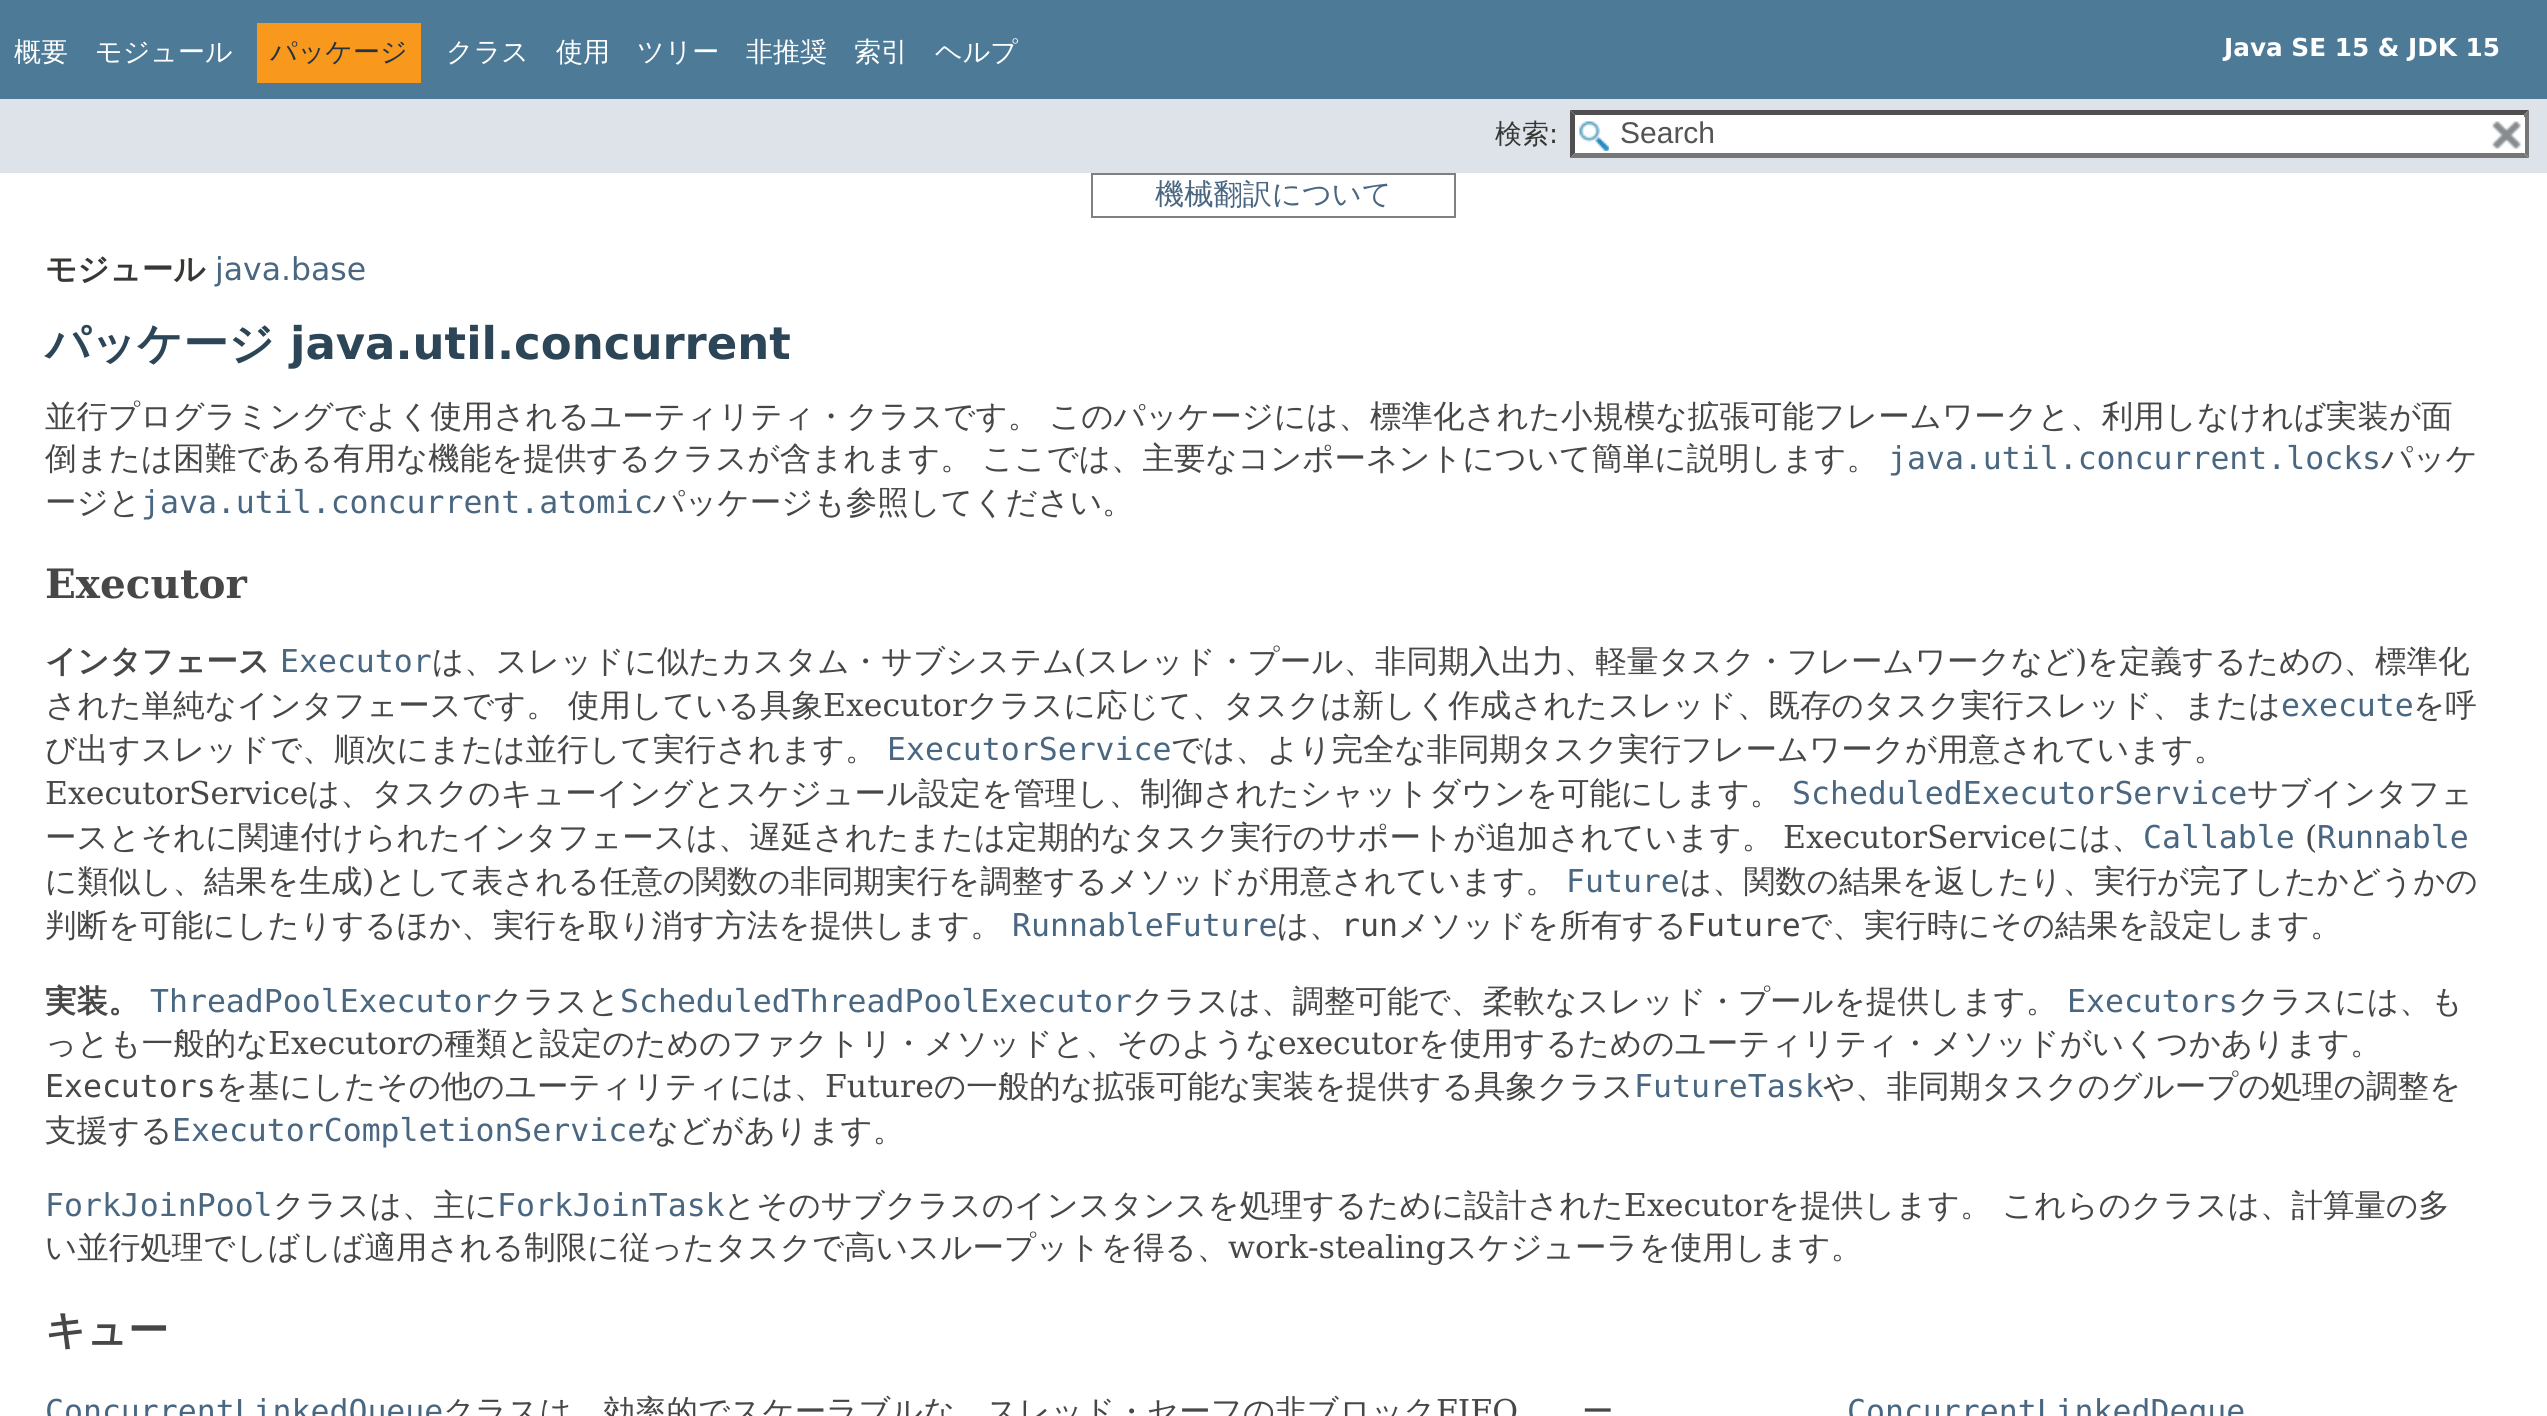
#include <cairo/cairo.h>
#include <math.h>
#include <stddef.h>


static void draw_image(cairo_t *cr, const char *path, double x, double y, double w, double h) {
  cairo_surface_t *image = cairo_image_surface_create_from_png(path);
  cairo_save(cr);
  cairo_set_source_surface(cr, image, x, y);
  cairo_rectangle(cr, x, y, w, h);
  cairo_fill(cr);
  cairo_restore(cr);
  cairo_surface_destroy(image);
}

static void draw(cairo_t *cr) {
  cairo_set_source_rgb(cr, 1, 1, 1);
  cairo_paint(cr);
  cairo_set_source_rgb(cr, 77 / 255.0, 122 / 255.0, 151 / 255.0);
  cairo_rectangle(cr, 0, 0, 2547, 99);
  cairo_fill(cr);
  cairo_set_source_rgb(cr, 248 / 255.0, 152 / 255.0, 29 / 255.0);
  cairo_rectangle(cr, 257, 23, 164, 60);
  cairo_fill(cr);
  cairo_set_source_rgb(cr, 222 / 255.0, 227 / 255.0, 233 / 255.0);
  cairo_rectangle(cr, 0, 99, 2547, 74);
  cairo_fill(cr);
  cairo_set_source_rgb(cr, 1, 1, 1);
  cairo_rectangle(cr, 1571, 110, 958, 48);
  cairo_fill(cr);
  draw_image(cr, "images/1.png", 1579, 121, 30, 30);
  cairo_set_source_rgb(cr, 79 / 255.0, 79 / 255.0, 79 / 255.0);
  cairo_new_path(cr);
  cairo_move_to(cr, 1570, 110);
  cairo_line_to(cr, 2529, 110);
  cairo_line_to(cr, 2524, 115);
  cairo_line_to(cr, 1575, 115);
  cairo_close_path(cr);
  cairo_fill(cr);
  cairo_set_source_rgb(cr, 118 / 255.0, 118 / 255.0, 118 / 255.0);
  cairo_new_path(cr);
  cairo_move_to(cr, 2529, 110);
  cairo_line_to(cr, 2529, 158);
  cairo_line_to(cr, 2524, 153);
  cairo_line_to(cr, 2524, 115);
  cairo_close_path(cr);
  cairo_fill(cr);
  cairo_new_path(cr);
  cairo_move_to(cr, 2529, 158);
  cairo_line_to(cr, 1570, 158);
  cairo_line_to(cr, 1575, 153);
  cairo_line_to(cr, 2524, 153);
  cairo_close_path(cr);
  cairo_fill(cr);
  cairo_set_source_rgb(cr, 79 / 255.0, 79 / 255.0, 79 / 255.0);
  cairo_new_path(cr);
  cairo_move_to(cr, 1570, 158);
  cairo_line_to(cr, 1570, 110);
  cairo_line_to(cr, 1575, 115);
  cairo_line_to(cr, 1575, 153);
  cairo_close_path(cr);
  cairo_fill(cr);
  cairo_set_source_rgb(cr, 1, 1, 1);
  cairo_rectangle(cr, 2524, 117, 1, 36);
  cairo_fill(cr);
  draw_image(cr, "images/2.png", 2491, 121, 30, 28);
  cairo_rectangle(cr, 1092, 174, 363, 43);
  cairo_set_source_rgb(cr, 128 / 255.0, 128 / 255.0, 128 / 255.0);
  cairo_stroke(cr);
  cairo_select_font_face(cr, "WenQuanYi Zen Hei Medium", CAIRO_FONT_SLANT_NORMAL, CAIRO_FONT_WEIGHT_NORMAL);
  cairo_set_font_size(cr, 27);
  cairo_set_source_rgb(cr, 1, 1, 1);
  cairo_move_to(cr, 14, 61);
  cairo_show_text(cr, "概要");
  cairo_move_to(cr, 95, 61);
  cairo_show_text(cr, "モジュール");
  cairo_set_source_rgb(cr, 37 / 255.0, 52 / 255.0, 65 / 255.0);
  cairo_move_to(cr, 270, 61);
  cairo_show_text(cr, "パッケージ");
  cairo_set_source_rgb(cr, 1, 1, 1);
  cairo_move_to(cr, 446, 61);
  cairo_show_text(cr, "クラス");
  cairo_move_to(cr, 556, 61);
  cairo_show_text(cr, "使用");
  cairo_move_to(cr, 637, 61);
  cairo_show_text(cr, "ツリー");
  cairo_move_to(cr, 746, 61);
  cairo_show_text(cr, "非推奨");
  cairo_move_to(cr, 854, 61);
  cairo_show_text(cr, "索引");
  cairo_move_to(cr, 935, 61);
  cairo_show_text(cr, "ヘルプ");
  cairo_select_font_face(cr, "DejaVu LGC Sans", CAIRO_FONT_SLANT_NORMAL, CAIRO_FONT_WEIGHT_BOLD);
  cairo_set_font_size(cr, 24.75);
  cairo_move_to(cr, 2224, 56);
  cairo_show_text(cr, "Java SE 15 & JDK 15");
  cairo_select_font_face(cr, "WenQuanYi Zen Hei Medium", CAIRO_FONT_SLANT_NORMAL, CAIRO_FONT_WEIGHT_NORMAL);
  cairo_set_font_size(cr, 27);
  cairo_set_source_rgb(cr, 53 / 255.0, 56 / 255.0, 51 / 255.0);
  cairo_move_to(cr, 1495, 143);
  cairo_show_text(cr, "検索");
  cairo_select_font_face(cr, "DejaVu LGC Sans", CAIRO_FONT_SLANT_NORMAL, CAIRO_FONT_WEIGHT_NORMAL);
  cairo_move_to(cr, 1549, 143);
  cairo_show_text(cr, ":");
  cairo_select_font_face(cr, "Liberation Sans", CAIRO_FONT_SLANT_NORMAL, CAIRO_FONT_WEIGHT_NORMAL);
  cairo_set_font_size(cr, 30);
  cairo_set_source_rgb(cr, 84 / 255.0, 84 / 255.0, 84 / 255.0);
  cairo_move_to(cr, 1620, 143);
  cairo_show_text(cr, "Search");
  cairo_select_font_face(cr, "WenQuanYi Zen Hei Medium", CAIRO_FONT_SLANT_NORMAL, CAIRO_FONT_WEIGHT_NORMAL);
  cairo_set_font_size(cr, 29.25);
  cairo_set_source_rgb(cr, 74 / 255.0, 103 / 255.0, 130 / 255.0);
  cairo_move_to(cr, 1155, 204);
  cairo_show_text(cr, "機械翻訳について");
  cairo_select_font_face(cr, "WenQuanYi Zen Hei", CAIRO_FONT_SLANT_NORMAL, CAIRO_FONT_WEIGHT_BOLD);
  cairo_set_font_size(cr, 31.5);
  cairo_set_source_rgb(cr, 53 / 255.0, 56 / 255.0, 51 / 255.0);
  cairo_move_to(cr, 45, 280);
  cairo_show_text(cr, "モジュール");
  cairo_select_font_face(cr, "DejaVu LGC Sans", CAIRO_FONT_SLANT_NORMAL, CAIRO_FONT_WEIGHT_NORMAL);
  cairo_set_source_rgb(cr, 74 / 255.0, 103 / 255.0, 130 / 255.0);
  cairo_move_to(cr, 215, 280);
  cairo_show_text(cr, "java.base");
  cairo_select_font_face(cr, "WenQuanYi Zen Hei", CAIRO_FONT_SLANT_NORMAL, CAIRO_FONT_WEIGHT_BOLD);
  cairo_set_font_size(cr, 45);
  cairo_set_source_rgb(cr, 44 / 255.0, 69 / 255.0, 87 / 255.0);
  cairo_move_to(cr, 45, 359);
  cairo_show_text(cr, "パッケージ");
  cairo_select_font_face(cr, "DejaVu LGC Sans", CAIRO_FONT_SLANT_NORMAL, CAIRO_FONT_WEIGHT_BOLD);
  cairo_move_to(cr, 290, 359);
  cairo_show_text(cr, "java.util.concurrent");
  cairo_select_font_face(cr, "WenQuanYi Zen Hei Medium", CAIRO_FONT_SLANT_NORMAL, CAIRO_FONT_WEIGHT_NORMAL);
  cairo_set_font_size(cr, 31.5);
  cairo_set_source_rgb(cr, 71 / 255.0, 71 / 255.0, 71 / 255.0);
  cairo_move_to(cr, 45, 427);
  cairo_show_text(cr, "並行プログラミングでよく使用されるユーティリティ・クラスです。");
  cairo_move_to(cr, 1049, 427);
  cairo_show_text(cr, "このパッケージには、標準化された小規模な拡張可能フレームワークと、利用しなければ実装が面");
  cairo_move_to(cr, 45, 469);
  cairo_show_text(cr, "倒または困難である有用な機能を提供するクラスが含まれます。");
  cairo_move_to(cr, 982, 469);
  cairo_show_text(cr, "ここでは、主要なコンポーネントについて簡単に説明します。");
  cairo_select_font_face(cr, "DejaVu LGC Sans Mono", CAIRO_FONT_SLANT_NORMAL, CAIRO_FONT_WEIGHT_NORMAL);
  cairo_set_source_rgb(cr, 74 / 255.0, 103 / 255.0, 130 / 255.0);
  cairo_move_to(cr, 1888, 469);
  cairo_show_text(cr, "java.util.concurrent.locks");
  cairo_select_font_face(cr, "WenQuanYi Zen Hei Medium", CAIRO_FONT_SLANT_NORMAL, CAIRO_FONT_WEIGHT_NORMAL);
  cairo_set_source_rgb(cr, 71 / 255.0, 71 / 255.0, 71 / 255.0);
  cairo_move_to(cr, 2381, 469);
  cairo_show_text(cr, "パッケ");
  cairo_move_to(cr, 45, 513);
  cairo_show_text(cr, "ージと");
  cairo_select_font_face(cr, "DejaVu LGC Sans Mono", CAIRO_FONT_SLANT_NORMAL, CAIRO_FONT_WEIGHT_NORMAL);
  cairo_set_source_rgb(cr, 74 / 255.0, 103 / 255.0, 130 / 255.0);
  cairo_move_to(cr, 141, 513);
  cairo_show_text(cr, "java.util.concurrent.atomic");
  cairo_select_font_face(cr, "WenQuanYi Zen Hei Medium", CAIRO_FONT_SLANT_NORMAL, CAIRO_FONT_WEIGHT_NORMAL);
  cairo_set_source_rgb(cr, 71 / 255.0, 71 / 255.0, 71 / 255.0);
  cairo_move_to(cr, 653, 513);
  cairo_show_text(cr, "パッケージも参照してください。");
  cairo_select_font_face(cr, "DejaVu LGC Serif", CAIRO_FONT_SLANT_NORMAL, CAIRO_FONT_WEIGHT_BOLD);
  cairo_set_font_size(cr, 40.5);
  cairo_move_to(cr, 45, 598);
  cairo_show_text(cr, "Executor");
  cairo_select_font_face(cr, "WenQuanYi Zen Hei", CAIRO_FONT_SLANT_NORMAL, CAIRO_FONT_WEIGHT_BOLD);
  cairo_set_font_size(cr, 31.5);
  cairo_move_to(cr, 45, 672);
  cairo_show_text(cr, "インタフェース");
  cairo_select_font_face(cr, "DejaVu LGC Sans Mono", CAIRO_FONT_SLANT_NORMAL, CAIRO_FONT_WEIGHT_NORMAL);
  cairo_set_source_rgb(cr, 74 / 255.0, 103 / 255.0, 130 / 255.0);
  cairo_move_to(cr, 280, 672);
  cairo_show_text(cr, "Executor");
  cairo_select_font_face(cr, "WenQuanYi Zen Hei Medium", CAIRO_FONT_SLANT_NORMAL, CAIRO_FONT_WEIGHT_NORMAL);
  cairo_set_source_rgb(cr, 71 / 255.0, 71 / 255.0, 71 / 255.0);
  cairo_move_to(cr, 432, 672);
  cairo_show_text(cr, "は、スレッドに似たカスタム・サブシステム");
  cairo_select_font_face(cr, "DejaVu LGC Serif", CAIRO_FONT_SLANT_NORMAL, CAIRO_FONT_WEIGHT_NORMAL);
  cairo_move_to(cr, 1074, 672);
  cairo_show_text(cr, "(");
  cairo_select_font_face(cr, "WenQuanYi Zen Hei Medium", CAIRO_FONT_SLANT_NORMAL, CAIRO_FONT_WEIGHT_NORMAL);
  cairo_move_to(cr, 1087, 672);
  cairo_show_text(cr, "スレッド・プール、非同期入出力、軽量タスク・フレームワークなど");
  cairo_select_font_face(cr, "DejaVu LGC Serif", CAIRO_FONT_SLANT_NORMAL, CAIRO_FONT_WEIGHT_NORMAL);
  cairo_move_to(cr, 2075, 672);
  cairo_show_text(cr, ")");
  cairo_select_font_face(cr, "WenQuanYi Zen Hei Medium", CAIRO_FONT_SLANT_NORMAL, CAIRO_FONT_WEIGHT_NORMAL);
  cairo_move_to(cr, 2087, 672);
  cairo_show_text(cr, "を定義するための、標準化");
  cairo_move_to(cr, 45, 716);
  cairo_show_text(cr, "された単純なインタフェースです。");
  cairo_move_to(cr, 568, 716);
  cairo_show_text(cr, "使用している具象");
  cairo_select_font_face(cr, "DejaVu LGC Serif", CAIRO_FONT_SLANT_NORMAL, CAIRO_FONT_WEIGHT_NORMAL);
  cairo_move_to(cr, 823, 716);
  cairo_show_text(cr, "Executor");
  cairo_select_font_face(cr, "WenQuanYi Zen Hei Medium", CAIRO_FONT_SLANT_NORMAL, CAIRO_FONT_WEIGHT_NORMAL);
  cairo_move_to(cr, 967, 716);
  cairo_show_text(cr, "クラスに応じて、タスクは新しく作成されたスレッド、既存のタスク実行スレッド、または");
  cairo_select_font_face(cr, "DejaVu LGC Sans Mono", CAIRO_FONT_SLANT_NORMAL, CAIRO_FONT_WEIGHT_NORMAL);
  cairo_set_source_rgb(cr, 74 / 255.0, 103 / 255.0, 130 / 255.0);
  cairo_move_to(cr, 2281, 716);
  cairo_show_text(cr, "execute");
  cairo_select_font_face(cr, "WenQuanYi Zen Hei Medium", CAIRO_FONT_SLANT_NORMAL, CAIRO_FONT_WEIGHT_NORMAL);
  cairo_set_source_rgb(cr, 71 / 255.0, 71 / 255.0, 71 / 255.0);
  cairo_move_to(cr, 2413, 716);
  cairo_show_text(cr, "を呼");
  cairo_move_to(cr, 45, 760);
  cairo_show_text(cr, "び出すスレッドで、順次にまたは並行して実行されます。");
  cairo_select_font_face(cr, "DejaVu LGC Sans Mono", CAIRO_FONT_SLANT_NORMAL, CAIRO_FONT_WEIGHT_NORMAL);
  cairo_set_source_rgb(cr, 74 / 255.0, 103 / 255.0, 130 / 255.0);
  cairo_move_to(cr, 887, 760);
  cairo_show_text(cr, "ExecutorService");
  cairo_select_font_face(cr, "WenQuanYi Zen Hei Medium", CAIRO_FONT_SLANT_NORMAL, CAIRO_FONT_WEIGHT_NORMAL);
  cairo_set_source_rgb(cr, 71 / 255.0, 71 / 255.0, 71 / 255.0);
  cairo_move_to(cr, 1171, 760);
  cairo_show_text(cr, "では、より完全な非同期タスク実行フレームワークが用意されています。");
  cairo_select_font_face(cr, "DejaVu LGC Serif", CAIRO_FONT_SLANT_NORMAL, CAIRO_FONT_WEIGHT_NORMAL);
  cairo_move_to(cr, 45, 804);
  cairo_show_text(cr, "ExecutorService");
  cairo_select_font_face(cr, "WenQuanYi Zen Hei Medium", CAIRO_FONT_SLANT_NORMAL, CAIRO_FONT_WEIGHT_NORMAL);
  cairo_move_to(cr, 308, 804);
  cairo_show_text(cr, "は、タスクのキューイングとスケジュール設定を管理し、制御されたシャットダウンを可能にします。");
  cairo_select_font_face(cr, "DejaVu LGC Sans Mono", CAIRO_FONT_SLANT_NORMAL, CAIRO_FONT_WEIGHT_NORMAL);
  cairo_set_source_rgb(cr, 74 / 255.0, 103 / 255.0, 130 / 255.0);
  cairo_move_to(cr, 1792, 804);
  cairo_show_text(cr, "ScheduledExecutorService");
  cairo_select_font_face(cr, "WenQuanYi Zen Hei Medium", CAIRO_FONT_SLANT_NORMAL, CAIRO_FONT_WEIGHT_NORMAL);
  cairo_set_source_rgb(cr, 71 / 255.0, 71 / 255.0, 71 / 255.0);
  cairo_move_to(cr, 2247, 804);
  cairo_show_text(cr, "サブインタフェ");
  cairo_move_to(cr, 45, 848);
  cairo_show_text(cr, "ースとそれに関連付けられたインタフェースは、遅延されたまたは定期的なタスク実行のサポートが追加されています。");
  cairo_select_font_face(cr, "DejaVu LGC Serif", CAIRO_FONT_SLANT_NORMAL, CAIRO_FONT_WEIGHT_NORMAL);
  cairo_move_to(cr, 1783, 848);
  cairo_show_text(cr, "ExecutorService");
  cairo_select_font_face(cr, "WenQuanYi Zen Hei Medium", CAIRO_FONT_SLANT_NORMAL, CAIRO_FONT_WEIGHT_NORMAL);
  cairo_move_to(cr, 2047, 848);
  cairo_show_text(cr, "には、");
  cairo_select_font_face(cr, "DejaVu LGC Sans Mono", CAIRO_FONT_SLANT_NORMAL, CAIRO_FONT_WEIGHT_NORMAL);
  cairo_set_source_rgb(cr, 74 / 255.0, 103 / 255.0, 130 / 255.0);
  cairo_move_to(cr, 2143, 848);
  cairo_show_text(cr, "Callable");
  cairo_select_font_face(cr, "DejaVu LGC Serif", CAIRO_FONT_SLANT_NORMAL, CAIRO_FONT_WEIGHT_NORMAL);
  cairo_set_source_rgb(cr, 71 / 255.0, 71 / 255.0, 71 / 255.0);
  cairo_move_to(cr, 2305, 848);
  cairo_show_text(cr, "(");
  cairo_select_font_face(cr, "DejaVu LGC Sans Mono", CAIRO_FONT_SLANT_NORMAL, CAIRO_FONT_WEIGHT_NORMAL);
  cairo_set_source_rgb(cr, 74 / 255.0, 103 / 255.0, 130 / 255.0);
  cairo_move_to(cr, 2317, 848);
  cairo_show_text(cr, "Runnable");
  cairo_select_font_face(cr, "WenQuanYi Zen Hei Medium", CAIRO_FONT_SLANT_NORMAL, CAIRO_FONT_WEIGHT_NORMAL);
  cairo_set_source_rgb(cr, 71 / 255.0, 71 / 255.0, 71 / 255.0);
  cairo_move_to(cr, 45, 892);
  cairo_show_text(cr, "に類似し、結果を生成");
  cairo_select_font_face(cr, "DejaVu LGC Serif", CAIRO_FONT_SLANT_NORMAL, CAIRO_FONT_WEIGHT_NORMAL);
  cairo_move_to(cr, 362, 892);
  cairo_show_text(cr, ")");
  cairo_select_font_face(cr, "WenQuanYi Zen Hei Medium", CAIRO_FONT_SLANT_NORMAL, CAIRO_FONT_WEIGHT_NORMAL);
  cairo_move_to(cr, 375, 892);
  cairo_show_text(cr, "として表される任意の関数の非同期実行を調整するメソッドが用意されています。");
  cairo_select_font_face(cr, "DejaVu LGC Sans Mono", CAIRO_FONT_SLANT_NORMAL, CAIRO_FONT_WEIGHT_NORMAL);
  cairo_set_source_rgb(cr, 74 / 255.0, 103 / 255.0, 130 / 255.0);
  cairo_move_to(cr, 1566, 892);
  cairo_show_text(cr, "Future");
  cairo_select_font_face(cr, "WenQuanYi Zen Hei Medium", CAIRO_FONT_SLANT_NORMAL, CAIRO_FONT_WEIGHT_NORMAL);
  cairo_set_source_rgb(cr, 71 / 255.0, 71 / 255.0, 71 / 255.0);
  cairo_move_to(cr, 1680, 892);
  cairo_show_text(cr, "は、関数の結果を返したり、実行が完了したかどうかの");
  cairo_move_to(cr, 45, 936);
  cairo_show_text(cr, "判断を可能にしたりするほか、実行を取り消す方法を提供します。");
  cairo_select_font_face(cr, "DejaVu LGC Sans Mono", CAIRO_FONT_SLANT_NORMAL, CAIRO_FONT_WEIGHT_NORMAL);
  cairo_set_source_rgb(cr, 74 / 255.0, 103 / 255.0, 130 / 255.0);
  cairo_move_to(cr, 1012, 936);
  cairo_show_text(cr, "RunnableFuture");
  cairo_select_font_face(cr, "WenQuanYi Zen Hei Medium", CAIRO_FONT_SLANT_NORMAL, CAIRO_FONT_WEIGHT_NORMAL);
  cairo_set_source_rgb(cr, 71 / 255.0, 71 / 255.0, 71 / 255.0);
  cairo_move_to(cr, 1277, 936);
  cairo_show_text(cr, "は、");
  cairo_select_font_face(cr, "DejaVu LGC Sans Mono", CAIRO_FONT_SLANT_NORMAL, CAIRO_FONT_WEIGHT_NORMAL);
  cairo_move_to(cr, 1341, 936);
  cairo_show_text(cr, "run");
  cairo_select_font_face(cr, "WenQuanYi Zen Hei Medium", CAIRO_FONT_SLANT_NORMAL, CAIRO_FONT_WEIGHT_NORMAL);
  cairo_move_to(cr, 1398, 936);
  cairo_show_text(cr, "メソッドを所有する");
  cairo_select_font_face(cr, "DejaVu LGC Sans Mono", CAIRO_FONT_SLANT_NORMAL, CAIRO_FONT_WEIGHT_NORMAL);
  cairo_move_to(cr, 1687, 936);
  cairo_show_text(cr, "Future");
  cairo_select_font_face(cr, "WenQuanYi Zen Hei Medium", CAIRO_FONT_SLANT_NORMAL, CAIRO_FONT_WEIGHT_NORMAL);
  cairo_move_to(cr, 1800, 936);
  cairo_show_text(cr, "で、実行時にその結果を設定します。");
  cairo_select_font_face(cr, "WenQuanYi Zen Hei", CAIRO_FONT_SLANT_NORMAL, CAIRO_FONT_WEIGHT_BOLD);
  cairo_move_to(cr, 45, 1012);
  cairo_show_text(cr, "実装。");
  cairo_select_font_face(cr, "DejaVu LGC Sans Mono", CAIRO_FONT_SLANT_NORMAL, CAIRO_FONT_WEIGHT_NORMAL);
  cairo_set_source_rgb(cr, 74 / 255.0, 103 / 255.0, 130 / 255.0);
  cairo_move_to(cr, 150, 1012);
  cairo_show_text(cr, "ThreadPoolExecutor");
  cairo_select_font_face(cr, "WenQuanYi Zen Hei Medium", CAIRO_FONT_SLANT_NORMAL, CAIRO_FONT_WEIGHT_NORMAL);
  cairo_set_source_rgb(cr, 71 / 255.0, 71 / 255.0, 71 / 255.0);
  cairo_move_to(cr, 491, 1012);
  cairo_show_text(cr, "クラスと");
  cairo_select_font_face(cr, "DejaVu LGC Sans Mono", CAIRO_FONT_SLANT_NORMAL, CAIRO_FONT_WEIGHT_NORMAL);
  cairo_set_source_rgb(cr, 74 / 255.0, 103 / 255.0, 130 / 255.0);
  cairo_move_to(cr, 620, 1012);
  cairo_show_text(cr, "ScheduledThreadPoolExecutor");
  cairo_select_font_face(cr, "WenQuanYi Zen Hei Medium", CAIRO_FONT_SLANT_NORMAL, CAIRO_FONT_WEIGHT_NORMAL);
  cairo_set_source_rgb(cr, 71 / 255.0, 71 / 255.0, 71 / 255.0);
  cairo_move_to(cr, 1132, 1012);
  cairo_show_text(cr, "クラスは、調整可能で、柔軟なスレッド・プールを提供します。");
  cairo_select_font_face(cr, "DejaVu LGC Sans Mono", CAIRO_FONT_SLANT_NORMAL, CAIRO_FONT_WEIGHT_NORMAL);
  cairo_set_source_rgb(cr, 74 / 255.0, 103 / 255.0, 130 / 255.0);
  cairo_move_to(cr, 2067, 1012);
  cairo_show_text(cr, "Executors");
  cairo_select_font_face(cr, "WenQuanYi Zen Hei Medium", CAIRO_FONT_SLANT_NORMAL, CAIRO_FONT_WEIGHT_NORMAL);
  cairo_set_source_rgb(cr, 71 / 255.0, 71 / 255.0, 71 / 255.0);
  cairo_move_to(cr, 2238, 1012);
  cairo_show_text(cr, "クラスには、も");
  cairo_move_to(cr, 45, 1054);
  cairo_show_text(cr, "っとも一般的な");
  cairo_select_font_face(cr, "DejaVu LGC Serif", CAIRO_FONT_SLANT_NORMAL, CAIRO_FONT_WEIGHT_NORMAL);
  cairo_move_to(cr, 268, 1054);
  cairo_show_text(cr, "Executor");
  cairo_select_font_face(cr, "WenQuanYi Zen Hei Medium", CAIRO_FONT_SLANT_NORMAL, CAIRO_FONT_WEIGHT_NORMAL);
  cairo_move_to(cr, 412, 1054);
  cairo_show_text(cr, "の種類と設定のためのファクトリ・メソッドと、そのような");
  cairo_select_font_face(cr, "DejaVu LGC Serif", CAIRO_FONT_SLANT_NORMAL, CAIRO_FONT_WEIGHT_NORMAL);
  cairo_move_to(cr, 1278, 1054);
  cairo_show_text(cr, "executor");
  cairo_select_font_face(cr, "WenQuanYi Zen Hei Medium", CAIRO_FONT_SLANT_NORMAL, CAIRO_FONT_WEIGHT_NORMAL);
  cairo_move_to(cr, 1418, 1054);
  cairo_show_text(cr, "を使用するためのユーティリティ・メソッドがいくつかあります。");
  cairo_select_font_face(cr, "DejaVu LGC Sans Mono", CAIRO_FONT_SLANT_NORMAL, CAIRO_FONT_WEIGHT_NORMAL);
  cairo_move_to(cr, 45, 1097);
  cairo_show_text(cr, "Executors");
  cairo_select_font_face(cr, "WenQuanYi Zen Hei Medium", CAIRO_FONT_SLANT_NORMAL, CAIRO_FONT_WEIGHT_NORMAL);
  cairo_move_to(cr, 216, 1097);
  cairo_show_text(cr, "を基にしたその他のユーティリティには、");
  cairo_select_font_face(cr, "DejaVu LGC Serif", CAIRO_FONT_SLANT_NORMAL, CAIRO_FONT_WEIGHT_NORMAL);
  cairo_move_to(cr, 825, 1097);
  cairo_show_text(cr, "Future");
  cairo_select_font_face(cr, "WenQuanYi Zen Hei Medium", CAIRO_FONT_SLANT_NORMAL, CAIRO_FONT_WEIGHT_NORMAL);
  cairo_move_to(cr, 934, 1097);
  cairo_show_text(cr, "の一般的な拡張可能な実装を提供する具象クラス");
  cairo_select_font_face(cr, "DejaVu LGC Sans Mono", CAIRO_FONT_SLANT_NORMAL, CAIRO_FONT_WEIGHT_NORMAL);
  cairo_set_source_rgb(cr, 74 / 255.0, 103 / 255.0, 130 / 255.0);
  cairo_move_to(cr, 1634, 1097);
  cairo_show_text(cr, "FutureTask");
  cairo_select_font_face(cr, "WenQuanYi Zen Hei Medium", CAIRO_FONT_SLANT_NORMAL, CAIRO_FONT_WEIGHT_NORMAL);
  cairo_set_source_rgb(cr, 71 / 255.0, 71 / 255.0, 71 / 255.0);
  cairo_move_to(cr, 1823, 1097);
  cairo_show_text(cr, "や、非同期タスクのグループの処理の調整を");
  cairo_move_to(cr, 45, 1141);
  cairo_show_text(cr, "支援する");
  cairo_select_font_face(cr, "DejaVu LGC Sans Mono", CAIRO_FONT_SLANT_NORMAL, CAIRO_FONT_WEIGHT_NORMAL);
  cairo_set_source_rgb(cr, 74 / 255.0, 103 / 255.0, 130 / 255.0);
  cairo_move_to(cr, 172, 1141);
  cairo_show_text(cr, "ExecutorCompletionService");
  cairo_select_font_face(cr, "WenQuanYi Zen Hei Medium", CAIRO_FONT_SLANT_NORMAL, CAIRO_FONT_WEIGHT_NORMAL);
  cairo_set_source_rgb(cr, 71 / 255.0, 71 / 255.0, 71 / 255.0);
  cairo_move_to(cr, 647, 1141);
  cairo_show_text(cr, "などがあります。");
  cairo_select_font_face(cr, "DejaVu LGC Sans Mono", CAIRO_FONT_SLANT_NORMAL, CAIRO_FONT_WEIGHT_NORMAL);
  cairo_set_source_rgb(cr, 74 / 255.0, 103 / 255.0, 130 / 255.0);
  cairo_move_to(cr, 45, 1216);
  cairo_show_text(cr, "ForkJoinPool");
  cairo_select_font_face(cr, "WenQuanYi Zen Hei Medium", CAIRO_FONT_SLANT_NORMAL, CAIRO_FONT_WEIGHT_NORMAL);
  cairo_set_source_rgb(cr, 71 / 255.0, 71 / 255.0, 71 / 255.0);
  cairo_move_to(cr, 273, 1216);
  cairo_show_text(cr, "クラスは、主に");
  cairo_select_font_face(cr, "DejaVu LGC Sans Mono", CAIRO_FONT_SLANT_NORMAL, CAIRO_FONT_WEIGHT_NORMAL);
  cairo_set_source_rgb(cr, 74 / 255.0, 103 / 255.0, 130 / 255.0);
  cairo_move_to(cr, 497, 1216);
  cairo_show_text(cr, "ForkJoinTask");
  cairo_select_font_face(cr, "WenQuanYi Zen Hei Medium", CAIRO_FONT_SLANT_NORMAL, CAIRO_FONT_WEIGHT_NORMAL);
  cairo_set_source_rgb(cr, 71 / 255.0, 71 / 255.0, 71 / 255.0);
  cairo_move_to(cr, 724, 1216);
  cairo_show_text(cr, "とそのサブクラスのインスタンスを処理するために設計された");
  cairo_select_font_face(cr, "DejaVu LGC Serif", CAIRO_FONT_SLANT_NORMAL, CAIRO_FONT_WEIGHT_NORMAL);
  cairo_move_to(cr, 1624, 1216);
  cairo_show_text(cr, "Executor");
  cairo_select_font_face(cr, "WenQuanYi Zen Hei Medium", CAIRO_FONT_SLANT_NORMAL, CAIRO_FONT_WEIGHT_NORMAL);
  cairo_move_to(cr, 1768, 1216);
  cairo_show_text(cr, "を提供します。");
  cairo_move_to(cr, 2002, 1216);
  cairo_show_text(cr, "これらのクラスは、計算量の多");
  cairo_move_to(cr, 45, 1258);
  cairo_show_text(cr, "い並行処理でしばしば適用される制限に従ったタスクで高いスループットを得る、");
  cairo_select_font_face(cr, "DejaVu LGC Serif", CAIRO_FONT_SLANT_NORMAL, CAIRO_FONT_WEIGHT_NORMAL);
  cairo_move_to(cr, 1228, 1258);
  cairo_show_text(cr, "work-stealing");
  cairo_select_font_face(cr, "WenQuanYi Zen Hei Medium", CAIRO_FONT_SLANT_NORMAL, CAIRO_FONT_WEIGHT_NORMAL);
  cairo_move_to(cr, 1446, 1258);
  cairo_show_text(cr, "スケジューラを使用します。");
  cairo_select_font_face(cr, "WenQuanYi Zen Hei", CAIRO_FONT_SLANT_NORMAL, CAIRO_FONT_WEIGHT_BOLD);
  cairo_set_font_size(cr, 40.5);
  cairo_move_to(cr, 45, 1344);
  cairo_show_text(cr, "キュー");
  cairo_select_font_face(cr, "DejaVu LGC Sans Mono", CAIRO_FONT_SLANT_NORMAL, CAIRO_FONT_WEIGHT_NORMAL);
  cairo_set_font_size(cr, 31.5);
  cairo_set_source_rgb(cr, 74 / 255.0, 103 / 255.0, 130 / 255.0);
  cairo_move_to(cr, 45, 1422);
  cairo_show_text(cr, "ConcurrentLinkedQueue");
  cairo_select_font_face(cr, "WenQuanYi Zen Hei Medium", CAIRO_FONT_SLANT_NORMAL, CAIRO_FONT_WEIGHT_NORMAL);
  cairo_set_source_rgb(cr, 71 / 255.0, 71 / 255.0, 71 / 255.0);
  cairo_move_to(cr, 443, 1422);
  cairo_show_text(cr, "クラスは、効率的でスケーラブルな、スレッド・セーフの非ブロック");
  cairo_select_font_face(cr, "DejaVu LGC Serif", CAIRO_FONT_SLANT_NORMAL, CAIRO_FONT_WEIGHT_NORMAL);
  cairo_move_to(cr, 1436, 1422);
  cairo_show_text(cr, "FIFO");
  cairo_select_font_face(cr, "WenQuanYi Zen Hei Medium", CAIRO_FONT_SLANT_NORMAL, CAIRO_FONT_WEIGHT_NORMAL);
  cairo_move_to(cr, 1582, 1422);
  cairo_show_text(cr, "ー");
  cairo_select_font_face(cr, "DejaVu LGC Sans Mono", CAIRO_FONT_SLANT_NORMAL, CAIRO_FONT_WEIGHT_NORMAL);
  cairo_set_source_rgb(cr, 74 / 255.0, 103 / 255.0, 130 / 255.0);
  cairo_move_to(cr, 1847, 1422);
  cairo_show_text(cr, "ConcurrentLinkedDeque");
}

int main(void) {
  cairo_surface_t *surface = cairo_image_surface_create(CAIRO_FORMAT_RGB24, 2547, 1416);
  cairo_t *cr = cairo_create(surface);
  cairo_font_options_t *options = cairo_font_options_create();
  cairo_font_options_set_hint_metrics(options, CAIRO_HINT_METRICS_OFF);
  cairo_font_options_set_hint_style(options, CAIRO_HINT_STYLE_NONE);
  cairo_set_font_options(cr, options);
  cairo_set_miter_limit(cr, 4);
  draw(cr);
  cairo_surface_write_to_png(surface, "out.png");
  cairo_font_options_destroy(options);
  cairo_destroy(cr);
  cairo_surface_destroy(surface);
  return 0;
}
